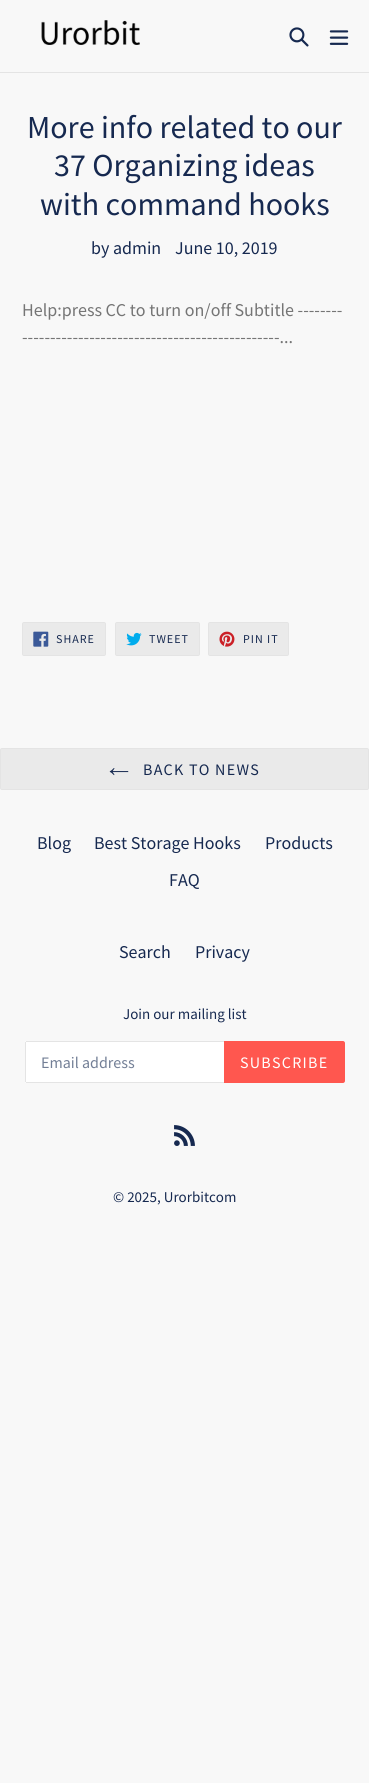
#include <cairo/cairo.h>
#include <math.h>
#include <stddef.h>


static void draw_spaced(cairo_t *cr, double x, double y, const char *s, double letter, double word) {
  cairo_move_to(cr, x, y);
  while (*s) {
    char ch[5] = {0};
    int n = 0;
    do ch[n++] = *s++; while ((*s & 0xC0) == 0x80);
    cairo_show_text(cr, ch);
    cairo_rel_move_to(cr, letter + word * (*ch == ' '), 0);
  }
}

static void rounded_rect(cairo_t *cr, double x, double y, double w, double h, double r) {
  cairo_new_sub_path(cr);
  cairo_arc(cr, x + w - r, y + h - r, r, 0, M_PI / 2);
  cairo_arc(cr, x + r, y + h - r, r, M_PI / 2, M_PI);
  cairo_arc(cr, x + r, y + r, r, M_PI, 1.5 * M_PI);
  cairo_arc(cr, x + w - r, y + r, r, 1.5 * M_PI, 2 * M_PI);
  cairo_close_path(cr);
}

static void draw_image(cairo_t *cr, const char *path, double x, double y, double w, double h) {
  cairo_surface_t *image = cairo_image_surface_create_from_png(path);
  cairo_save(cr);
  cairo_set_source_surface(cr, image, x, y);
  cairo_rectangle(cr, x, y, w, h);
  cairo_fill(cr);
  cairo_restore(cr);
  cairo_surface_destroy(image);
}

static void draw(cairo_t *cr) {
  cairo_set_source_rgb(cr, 248 / 255.0, 248 / 255.0, 248 / 255.0);
  cairo_paint(cr);
  cairo_set_source_rgb(cr, 228 / 255.0, 228 / 255.0, 228 / 255.0);
  cairo_rectangle(cr, 0, 72, 369, 1);
  cairo_fill(cr);
  draw_image(cr, "images/1.png", 41, 20, 99, 25);
  draw_image(cr, "images/2.png", 289, 27, 20, 20);
  draw_image(cr, "images/3.png", 329, 30, 20, 15);
  cairo_set_source_rgb(cr, 234 / 255.0, 234 / 255.0, 234 / 255.0);
  rounded_rect(cr, 22.5, 622.5, 83, 33, 1.5);
  cairo_fill_preserve(cr);
  cairo_set_source_rgb(cr, 228 / 255.0, 228 / 255.0, 228 / 255.0);
  cairo_set_line_width(cr, 1);
  cairo_stroke(cr);
  draw_image(cr, "images/4.png", 33, 631, 16, 16);
  cairo_set_source_rgb(cr, 234 / 255.0, 234 / 255.0, 234 / 255.0);
  rounded_rect(cr, 115.5, 622.5, 84, 33, 1.5);
  cairo_fill_preserve(cr);
  cairo_set_source_rgb(cr, 228 / 255.0, 228 / 255.0, 228 / 255.0);
  cairo_stroke(cr);
  draw_image(cr, "images/5.png", 126, 632, 16, 14);
  cairo_set_source_rgb(cr, 234 / 255.0, 234 / 255.0, 234 / 255.0);
  rounded_rect(cr, 208.5, 622.5, 80, 33, 1.5);
  cairo_fill_preserve(cr);
  cairo_set_source_rgb(cr, 228 / 255.0, 228 / 255.0, 228 / 255.0);
  cairo_stroke(cr);
  draw_image(cr, "images/6.png", 219, 631, 16, 16);
  cairo_set_source_rgb(cr, 234 / 255.0, 234 / 255.0, 234 / 255.0);
  rounded_rect(cr, 0.5, 748.5, 368, 41, 1.5);
  cairo_fill_preserve(cr);
  cairo_set_source_rgb(cr, 228 / 255.0, 228 / 255.0, 228 / 255.0);
  cairo_stroke(cr);
  draw_image(cr, "images/7.png", 109, 768, 20, 8);
  cairo_set_source_rgb(cr, 1, 1, 1);
  cairo_new_path(cr);
  cairo_move_to(cr, 27, 1041);
  cairo_line_to(cr, 224, 1041);
  cairo_line_to(cr, 224, 1083);
  cairo_line_to(cr, 27, 1083);
  cairo_curve_to(cr, 26, 1083, 25, 1082, 25, 1081);
  cairo_line_to(cr, 25, 1043);
  cairo_curve_to(cr, 25, 1042, 26, 1041, 27, 1041);
  cairo_close_path(cr);
  cairo_fill(cr);
  cairo_set_source_rgb(cr, 228 / 255.0, 228 / 255.0, 228 / 255.0);
  cairo_rectangle(cr, 26, 1041, 198, 1);
  cairo_fill(cr);
  cairo_rectangle(cr, 26, 1082, 198, 1);
  cairo_fill(cr);
  cairo_rectangle(cr, 25, 1042, 1, 40);
  cairo_fill(cr);
  cairo_set_source_rgb(cr, 1, 87 / 255.0, 79 / 255.0);
  cairo_new_path(cr);
  cairo_move_to(cr, 224, 1041);
  cairo_line_to(cr, 343, 1041);
  cairo_curve_to(cr, 344, 1041, 345, 1042, 345, 1043);
  cairo_line_to(cr, 345, 1081);
  cairo_curve_to(cr, 345, 1082, 344, 1083, 343, 1083);
  cairo_line_to(cr, 224, 1083);
  cairo_close_path(cr);
  cairo_fill(cr);
  draw_image(cr, "images/8.png", 174, 1125, 21, 21);
  cairo_select_font_face(cr, "Source Sans Pro", CAIRO_FONT_SLANT_NORMAL, CAIRO_FONT_WEIGHT_NORMAL);
  cairo_set_font_size(cr, 32);
  cairo_set_source_rgb(cr, 22 / 255.0, 41 / 255.0, 80 / 255.0);
  cairo_move_to(cr, 27, 138);
  cairo_show_text(cr, "More info related to our");
  cairo_move_to(cr, 54, 176);
  cairo_show_text(cr, "37 Organizing ideas");
  cairo_move_to(cr, 40, 215);
  cairo_show_text(cr, "with command hooks");
  cairo_set_font_size(cr, 18);
  cairo_move_to(cr, 91, 254);
  cairo_show_text(cr, "by admin");
  cairo_move_to(cr, 175, 254);
  cairo_show_text(cr, "June 10, 2019");
  cairo_set_source_rgb(cr, 117 / 255.0, 117 / 255.0, 117 / 255.0);
  cairo_move_to(cr, 22, 316);
  cairo_show_text(cr, "Help:press CC to turn on/off Subtitle --------");
  cairo_move_to(cr, 22, 343);
  cairo_show_text(cr, "----------------------------------------------...");
  cairo_set_font_size(cr, 12);
  cairo_set_source_rgb(cr, 22 / 255.0, 41 / 255.0, 80 / 255.0);
  draw_spaced(cr, 56, 643, "SHARE", 1, 0);
  draw_spaced(cr, 149, 643, "TWEET", 1, 0);
  draw_spaced(cr, 243, 643, "PIN IT", 1, 0);
  cairo_set_font_size(cr, 16);
  draw_spaced(cr, 143, 775, "BACK TO NEWS", 1.25, 0);
  cairo_set_font_size(cr, 18);
  cairo_move_to(cr, 37, 849);
  cairo_show_text(cr, "Blog");
  cairo_move_to(cr, 94, 849);
  cairo_show_text(cr, "Best Storage Hooks");
  cairo_move_to(cr, 265, 849);
  cairo_show_text(cr, "Products");
  cairo_move_to(cr, 169, 886);
  cairo_show_text(cr, "FAQ");
  cairo_move_to(cr, 119, 958);
  cairo_show_text(cr, "Search");
  cairo_move_to(cr, 195, 958);
  cairo_show_text(cr, "Privacy");
  cairo_set_font_size(cr, 15);
  cairo_move_to(cr, 123, 1019);
  cairo_show_text(cr, "Join our mailing list");
  cairo_set_font_size(cr, 16);
  cairo_set_source_rgb(cr, 115 / 255.0, 127 / 255.0, 150 / 255.0);
  cairo_move_to(cr, 41, 1068);
  cairo_show_text(cr, "Email address");
  cairo_set_source_rgb(cr, 1, 1, 1);
  draw_spaced(cr, 240, 1068, "SUBSCRIBE", 1.25, 0);
  cairo_set_font_size(cr, 15);
  cairo_set_source_rgb(cr, 22 / 255.0, 41 / 255.0, 80 / 255.0);
  cairo_move_to(cr, 113, 1202);
  cairo_show_text(cr, "© 2025, Urorbitcom");
}

int main(void) {
  cairo_surface_t *surface = cairo_image_surface_create(CAIRO_FORMAT_RGB24, 369, 1783);
  cairo_t *cr = cairo_create(surface);
  cairo_font_options_t *options = cairo_font_options_create();
  cairo_font_options_set_hint_metrics(options, CAIRO_HINT_METRICS_OFF);
  cairo_font_options_set_hint_style(options, CAIRO_HINT_STYLE_NONE);
  cairo_set_font_options(cr, options);
  cairo_set_miter_limit(cr, 4);
  draw(cr);
  cairo_surface_write_to_png(surface, "out.png");
  cairo_font_options_destroy(options);
  cairo_destroy(cr);
  cairo_surface_destroy(surface);
  return 0;
}
